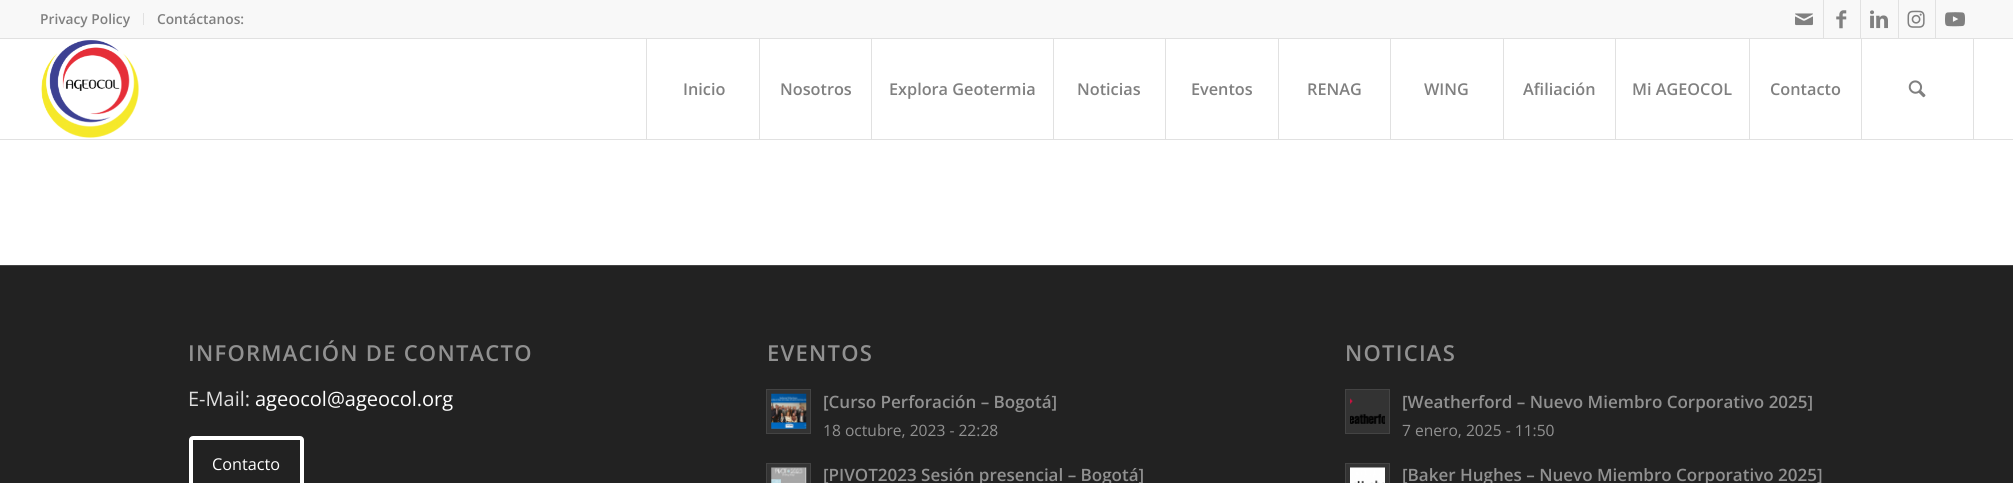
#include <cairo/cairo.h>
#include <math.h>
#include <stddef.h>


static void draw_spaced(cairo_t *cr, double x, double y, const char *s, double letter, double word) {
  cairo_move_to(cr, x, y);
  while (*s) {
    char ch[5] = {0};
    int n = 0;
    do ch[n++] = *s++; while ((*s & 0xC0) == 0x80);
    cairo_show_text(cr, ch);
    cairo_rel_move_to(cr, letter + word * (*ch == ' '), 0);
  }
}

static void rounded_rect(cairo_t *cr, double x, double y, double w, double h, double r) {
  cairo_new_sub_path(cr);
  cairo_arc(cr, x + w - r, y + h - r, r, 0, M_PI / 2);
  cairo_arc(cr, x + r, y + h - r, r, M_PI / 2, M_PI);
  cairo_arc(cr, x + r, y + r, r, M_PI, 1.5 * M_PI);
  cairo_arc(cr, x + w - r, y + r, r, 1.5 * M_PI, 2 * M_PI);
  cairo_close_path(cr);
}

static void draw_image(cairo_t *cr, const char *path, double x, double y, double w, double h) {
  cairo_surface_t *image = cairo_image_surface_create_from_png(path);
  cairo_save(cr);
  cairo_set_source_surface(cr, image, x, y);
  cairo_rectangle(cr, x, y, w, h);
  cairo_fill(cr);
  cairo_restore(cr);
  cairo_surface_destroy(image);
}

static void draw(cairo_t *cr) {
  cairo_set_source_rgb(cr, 1, 1, 1);
  cairo_paint(cr);
  cairo_set_source_rgb(cr, 248 / 255.0, 248 / 255.0, 248 / 255.0);
  cairo_rectangle(cr, 0, 0, 2013, 38);
  cairo_fill(cr);
  cairo_set_source_rgb(cr, 225 / 255.0, 225 / 255.0, 225 / 255.0);
  cairo_rectangle(cr, 0, 38, 2013, 1);
  cairo_fill(cr);
  cairo_rectangle(cr, 143, 13, 1, 12);
  cairo_fill(cr);
  cairo_rectangle(cr, 1823, 0, 1, 38);
  cairo_fill(cr);
  draw_image(cr, "images/1.png", 1795, 13, 18, 13);
  cairo_rectangle(cr, 1860, 0, 1, 38);
  cairo_fill(cr);
  draw_image(cr, "images/2.png", 1836, 10, 11, 19);
  cairo_rectangle(cr, 1898, 0, 1, 38);
  cairo_fill(cr);
  draw_image(cr, "images/3.png", 1870, 10, 18, 19);
  cairo_rectangle(cr, 1935, 0, 1, 38);
  cairo_fill(cr);
  draw_image(cr, "images/4.png", 1907, 10, 18, 18);
  draw_image(cr, "images/5.png", 1945, 12, 20, 15);
  cairo_rectangle(cr, 0, 139, 2013, 1);
  cairo_fill(cr);
  draw_image(cr, "images/6.png", 41, 40, 98, 98);
  cairo_rectangle(cr, 646, 39, 1, 100);
  cairo_fill(cr);
  cairo_rectangle(cr, 759, 39, 1, 100);
  cairo_fill(cr);
  cairo_rectangle(cr, 871, 39, 1, 100);
  cairo_fill(cr);
  cairo_rectangle(cr, 1053, 39, 1, 100);
  cairo_fill(cr);
  cairo_rectangle(cr, 1165, 39, 1, 100);
  cairo_fill(cr);
  cairo_rectangle(cr, 1278, 39, 1, 100);
  cairo_fill(cr);
  cairo_rectangle(cr, 1390, 39, 1, 100);
  cairo_fill(cr);
  cairo_rectangle(cr, 1503, 39, 1, 100);
  cairo_fill(cr);
  cairo_rectangle(cr, 1615, 39, 1, 100);
  cairo_fill(cr);
  cairo_rectangle(cr, 1749, 39, 1, 100);
  cairo_fill(cr);
  cairo_rectangle(cr, 1973, 39, 1, 100);
  cairo_fill(cr);
  cairo_rectangle(cr, 1861, 39, 1, 100);
  cairo_fill(cr);
  draw_image(cr, "images/7.png", 1908, 80, 18, 18);
  cairo_set_source_rgb(cr, 34 / 255.0, 34 / 255.0, 34 / 255.0);
  cairo_rectangle(cr, 0, 266, 2013, 217);
  cairo_fill(cr);
  cairo_set_source_rgb(cr, 68 / 255.0, 68 / 255.0, 68 / 255.0);
  cairo_rectangle(cr, 0, 265, 2013, 1);
  cairo_fill(cr);
  rounded_rect(cr, 191, 438, 111, 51, 2);
  cairo_set_source_rgb(cr, 1, 1, 1);
  cairo_set_line_width(cr, 4);
  cairo_stroke(cr);
  cairo_set_source_rgb(cr, 51 / 255.0, 51 / 255.0, 51 / 255.0);
  cairo_rectangle(cr, 766.5, 389.5, 44, 44);
  cairo_fill_preserve(cr);
  cairo_set_source_rgb(cr, 68 / 255.0, 68 / 255.0, 68 / 255.0);
  cairo_set_line_width(cr, 1);
  cairo_stroke(cr);
  draw_image(cr, "images/8.png", 771, 393, 36, 36);
  cairo_set_source_rgb(cr, 51 / 255.0, 51 / 255.0, 51 / 255.0);
  cairo_rectangle(cr, 766.5, 463.5, 44, 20);
  cairo_fill_preserve(cr);
  cairo_set_source_rgb(cr, 68 / 255.0, 68 / 255.0, 68 / 255.0);
  cairo_stroke(cr);
  draw_image(cr, "images/9.png", 771, 467, 36, 16);
  cairo_set_source_rgb(cr, 51 / 255.0, 51 / 255.0, 51 / 255.0);
  cairo_rectangle(cr, 1345.5, 389.5, 44, 44);
  cairo_fill_preserve(cr);
  cairo_set_source_rgb(cr, 68 / 255.0, 68 / 255.0, 68 / 255.0);
  cairo_stroke(cr);
  draw_image(cr, "images/10.png", 1350, 398, 35, 26);
  cairo_set_source_rgb(cr, 51 / 255.0, 51 / 255.0, 51 / 255.0);
  cairo_rectangle(cr, 1345.5, 463.5, 44, 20);
  cairo_fill_preserve(cr);
  cairo_set_source_rgb(cr, 68 / 255.0, 68 / 255.0, 68 / 255.0);
  cairo_stroke(cr);
  draw_image(cr, "images/11.png", 1350, 467, 35, 16);
  cairo_select_font_face(cr, "Open Sans SemiBold", CAIRO_FONT_SLANT_NORMAL, CAIRO_FONT_WEIGHT_NORMAL);
  cairo_set_font_size(cr, 13.75);
  cairo_set_source_rgb(cr, 128 / 255.0, 128 / 255.0, 128 / 255.0);
  cairo_move_to(cr, 40, 24);
  cairo_show_text(cr, "Privacy Policy");
  cairo_move_to(cr, 157, 24);
  cairo_show_text(cr, "Contáctanos:");
  cairo_set_font_size(cr, 16.25);
  cairo_move_to(cr, 683, 95);
  cairo_show_text(cr, "Inicio");
  cairo_move_to(cr, 780, 95);
  cairo_show_text(cr, "Nosotros");
  cairo_move_to(cr, 889, 95);
  cairo_show_text(cr, "Explora Geotermia");
  cairo_move_to(cr, 1077, 95);
  cairo_show_text(cr, "Noticias");
  cairo_move_to(cr, 1191, 95);
  cairo_show_text(cr, "Eventos");
  cairo_move_to(cr, 1307, 95);
  cairo_show_text(cr, "RENAG");
  cairo_move_to(cr, 1424, 95);
  cairo_show_text(cr, "WING");
  cairo_move_to(cr, 1523, 95);
  cairo_show_text(cr, "Afiliación");
  cairo_move_to(cr, 1632, 95);
  cairo_show_text(cr, "Mi AGEOCOL");
  cairo_move_to(cr, 1770, 95);
  cairo_show_text(cr, "Contacto");
  cairo_set_font_size(cr, 22);
  cairo_set_source_rgb(cr, 145 / 255.0, 145 / 255.0, 145 / 255.0);
  draw_spaced(cr, 188, 361, "INFORMACIÓN DE CONTACTO", 1.25, 0);
  cairo_select_font_face(cr, "Open Sans", CAIRO_FONT_SLANT_NORMAL, CAIRO_FONT_WEIGHT_NORMAL);
  cairo_set_font_size(cr, 20);
  cairo_set_source_rgb(cr, 221 / 255.0, 221 / 255.0, 221 / 255.0);
  cairo_move_to(cr, 188, 406);
  cairo_show_text(cr, "E-Mail:");
  cairo_set_source_rgb(cr, 1, 1, 1);
  cairo_move_to(cr, 255, 406);
  cairo_show_text(cr, "ageocol@ageocol.org");
  cairo_set_font_size(cr, 16.25);
  cairo_move_to(cr, 212, 470);
  cairo_show_text(cr, "Contacto");
  cairo_select_font_face(cr, "Open Sans SemiBold", CAIRO_FONT_SLANT_NORMAL, CAIRO_FONT_WEIGHT_NORMAL);
  cairo_set_font_size(cr, 22);
  cairo_set_source_rgb(cr, 145 / 255.0, 145 / 255.0, 145 / 255.0);
  draw_spaced(cr, 767, 361, "EVENTOS", 1.25, 0);
  cairo_set_font_size(cr, 17);
  cairo_move_to(cr, 823, 408);
  cairo_show_text(cr, "[Curso Perforación – Bogotá]");
  cairo_select_font_face(cr, "Open Sans", CAIRO_FONT_SLANT_NORMAL, CAIRO_FONT_WEIGHT_NORMAL);
  cairo_set_font_size(cr, 15.6);
  cairo_move_to(cr, 823, 436);
  cairo_show_text(cr, "18 octubre, 2023 - 22:28");
  cairo_select_font_face(cr, "Open Sans SemiBold", CAIRO_FONT_SLANT_NORMAL, CAIRO_FONT_WEIGHT_NORMAL);
  cairo_set_font_size(cr, 17);
  cairo_move_to(cr, 823, 481);
  cairo_show_text(cr, "[PIVOT2023 Sesión presencial – Bogotá]");
  cairo_set_font_size(cr, 22);
  draw_spaced(cr, 1345, 361, "NOTICIAS", 1.25, 0);
  cairo_set_font_size(cr, 17);
  cairo_move_to(cr, 1402, 408);
  cairo_show_text(cr, "[Weatherford – Nuevo Miembro Corporativo 2025]");
  cairo_select_font_face(cr, "Open Sans", CAIRO_FONT_SLANT_NORMAL, CAIRO_FONT_WEIGHT_NORMAL);
  cairo_set_font_size(cr, 15.6);
  cairo_move_to(cr, 1402, 436);
  cairo_show_text(cr, "7 enero, 2025 - 11:50");
  cairo_select_font_face(cr, "Open Sans SemiBold", CAIRO_FONT_SLANT_NORMAL, CAIRO_FONT_WEIGHT_NORMAL);
  cairo_set_font_size(cr, 17);
  cairo_move_to(cr, 1402, 481);
  cairo_show_text(cr, "[Baker Hughes – Nuevo Miembro Corporativo 2025]");
}

int main(void) {
  cairo_surface_t *surface = cairo_image_surface_create(CAIRO_FORMAT_RGB24, 2013, 483);
  cairo_t *cr = cairo_create(surface);
  cairo_font_options_t *options = cairo_font_options_create();
  cairo_font_options_set_hint_metrics(options, CAIRO_HINT_METRICS_OFF);
  cairo_font_options_set_hint_style(options, CAIRO_HINT_STYLE_NONE);
  cairo_set_font_options(cr, options);
  cairo_set_miter_limit(cr, 4);
  draw(cr);
  cairo_surface_write_to_png(surface, "out.png");
  cairo_font_options_destroy(options);
  cairo_destroy(cr);
  cairo_surface_destroy(surface);
  return 0;
}
